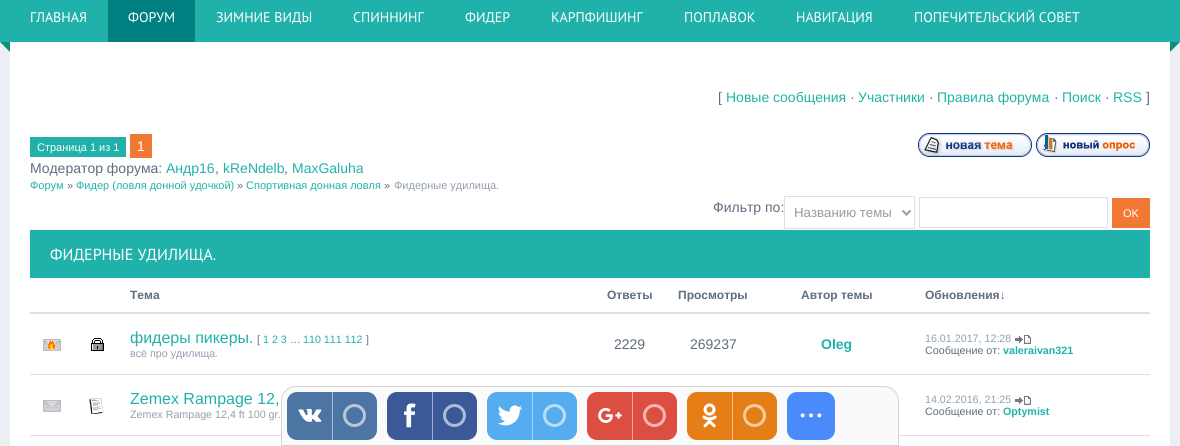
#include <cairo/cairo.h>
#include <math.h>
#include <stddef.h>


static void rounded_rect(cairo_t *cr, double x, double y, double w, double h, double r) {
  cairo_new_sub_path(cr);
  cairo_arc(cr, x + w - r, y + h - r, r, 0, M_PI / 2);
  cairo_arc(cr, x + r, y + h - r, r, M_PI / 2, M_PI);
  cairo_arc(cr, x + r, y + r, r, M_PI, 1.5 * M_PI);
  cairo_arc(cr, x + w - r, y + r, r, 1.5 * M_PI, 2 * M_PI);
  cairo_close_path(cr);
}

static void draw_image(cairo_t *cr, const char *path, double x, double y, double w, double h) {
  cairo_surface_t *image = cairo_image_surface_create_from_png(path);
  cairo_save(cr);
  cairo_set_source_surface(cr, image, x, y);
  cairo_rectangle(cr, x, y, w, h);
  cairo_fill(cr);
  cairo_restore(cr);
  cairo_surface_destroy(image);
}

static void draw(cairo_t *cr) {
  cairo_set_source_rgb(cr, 236 / 255.0, 239 / 255.0, 243 / 255.0);
  cairo_paint(cr);
  cairo_set_source_rgb(cr, 32 / 255.0, 178 / 255.0, 170 / 255.0);
  cairo_rectangle(cr, 0, 0, 1180, 42);
  cairo_fill(cr);
  cairo_set_source_rgb(cr, 0, 128 / 255.0, 128 / 255.0);
  cairo_rectangle(cr, 108, 0, 87, 42);
  cairo_fill(cr);
  cairo_set_source_rgb(cr, 12 / 255.0, 144 / 255.0, 118 / 255.0);
  cairo_new_path(cr);
  cairo_move_to(cr, 0, 42);
  cairo_line_to(cr, 10, 42);
  cairo_line_to(cr, 10, 52);
  cairo_close_path(cr);
  cairo_fill(cr);
  cairo_new_path(cr);
  cairo_move_to(cr, 1170, 42);
  cairo_line_to(cr, 1180, 42);
  cairo_line_to(cr, 1170, 52);
  cairo_close_path(cr);
  cairo_fill(cr);
  cairo_set_source_rgb(cr, 1, 1, 1);
  cairo_rectangle(cr, 10, 42, 1160, 404);
  cairo_fill(cr);
  cairo_set_source_rgb(cr, 32 / 255.0, 178 / 255.0, 170 / 255.0);
  cairo_rectangle(cr, 30, 137, 96, 20);
  cairo_fill(cr);
  cairo_set_source_rgb(cr, 242 / 255.0, 121 / 255.0, 53 / 255.0);
  cairo_rectangle(cr, 130, 134, 22, 24);
  cairo_fill(cr);
  draw_image(cr, "images/1.png", 918, 133, 114, 24);
  draw_image(cr, "images/2.png", 1036, 133, 114, 24);
  cairo_rectangle(cr, 784.5, 196.5, 130, 32);
  cairo_set_source_rgb(cr, 219 / 255.0, 225 / 255.0, 232 / 255.0);
  cairo_set_line_width(cr, 1);
  cairo_stroke(cr);
  cairo_new_path(cr);
  cairo_move_to(cr, 902.5, 210.5);
  cairo_line_to(cr, 906.5, 214.5);
  cairo_line_to(cr, 910.5, 210.5);
  cairo_set_source_rgb(cr, 153 / 255.0, 153 / 255.0, 153 / 255.0);
  cairo_set_line_width(cr, 2);
  cairo_stroke(cr);
  cairo_rectangle(cr, 919.5, 197.5, 188, 30);
  cairo_set_source_rgb(cr, 219 / 255.0, 225 / 255.0, 232 / 255.0);
  cairo_set_line_width(cr, 1);
  cairo_stroke(cr);
  cairo_set_source_rgb(cr, 242 / 255.0, 121 / 255.0, 53 / 255.0);
  cairo_rectangle(cr, 1112, 198, 38, 30);
  cairo_fill(cr);
  cairo_set_source_rgb(cr, 32 / 255.0, 178 / 255.0, 170 / 255.0);
  cairo_rectangle(cr, 30, 230, 1120, 48);
  cairo_fill(cr);
  cairo_set_source_rgb(cr, 219 / 255.0, 225 / 255.0, 232 / 255.0);
  cairo_rectangle(cr, 30, 312, 1120, 2);
  cairo_fill(cr);
  draw_image(cr, "images/3.png", 91, 338, 13, 13);
  draw_image(cr, "images/4.png", 1015, 335, 16, 9);
  cairo_rectangle(cr, 30, 374, 1120, 1);
  cairo_fill(cr);
  draw_image(cr, "images/5.png", 43, 339, 18, 12);
  draw_image(cr, "images/6.png", 89, 398, 15, 16);
  draw_image(cr, "images/4.png", 1015, 396, 16, 9);
  cairo_rectangle(cr, 30, 435, 251, 1);
  cairo_fill(cr);
  draw_image(cr, "images/7.png", 43, 400, 18, 12);
  cairo_rectangle(cr, 899, 435, 251, 1);
  cairo_fill(cr);
  cairo_set_source_rgb(cr, 250 / 255.0, 250 / 255.0, 250 / 255.0);
  cairo_new_path(cr);
  cairo_move_to(cr, 296, 386.5);
  cairo_line_to(cr, 884, 386.5);
  cairo_curve_to(cr, 892, 386.5, 898.5, 393, 898.5, 401);
  cairo_line_to(cr, 898.5, 445.5);
  cairo_line_to(cr, 281.5, 445.5);
  cairo_line_to(cr, 281.5, 401);
  cairo_curve_to(cr, 281.5, 393, 288, 386.5, 296, 386.5);
  cairo_close_path(cr);
  cairo_fill_preserve(cr);
  cairo_set_source_rgb(cr, 212 / 255.0, 212 / 255.0, 212 / 255.0);
  cairo_stroke(cr);
  cairo_set_source_rgb(cr, 77 / 255.0, 117 / 255.0, 163 / 255.0);
  rounded_rect(cr, 287, 392, 90, 48, 10);
  cairo_fill(cr);
  draw_image(cr, "images/8.png", 298, 408, 24, 14);
  cairo_set_source_rgb(cr, 166 / 255.0, 186 / 255.0, 209 / 255.0);
  cairo_rectangle(cr, 332, 392, 1, 48);
  cairo_fill(cr);
  cairo_arc(cr, 354.5, 415.5, 10, 0, 2 * M_PI);
  cairo_set_source_rgb(cr, 184 / 255.0, 200 / 255.0, 218 / 255.0);
  cairo_set_line_width(cr, 3);
  cairo_stroke(cr);
  cairo_set_source_rgb(cr, 59 / 255.0, 89 / 255.0, 152 / 255.0);
  rounded_rect(cr, 387, 392, 90, 48, 10);
  cairo_fill(cr);
  draw_image(cr, "images/9.png", 404, 403, 12, 25);
  cairo_set_source_rgb(cr, 157 / 255.0, 172 / 255.0, 204 / 255.0);
  cairo_rectangle(cr, 432, 392, 1, 48);
  cairo_fill(cr);
  cairo_arc(cr, 454.5, 415.5, 10, 0, 2 * M_PI);
  cairo_set_source_rgb(cr, 177 / 255.0, 189 / 255.0, 214 / 255.0);
  cairo_stroke(cr);
  cairo_set_source_rgb(cr, 85 / 255.0, 172 / 255.0, 238 / 255.0);
  rounded_rect(cr, 487, 392, 90, 48, 10);
  cairo_fill(cr);
  draw_image(cr, "images/10.png", 498, 405, 25, 21);
  cairo_set_source_rgb(cr, 170 / 255.0, 214 / 255.0, 247 / 255.0);
  cairo_rectangle(cr, 532, 392, 1, 48);
  cairo_fill(cr);
  cairo_arc(cr, 554.5, 415.5, 10, 0, 2 * M_PI);
  cairo_set_source_rgb(cr, 187 / 255.0, 222 / 255.0, 248 / 255.0);
  cairo_stroke(cr);
  cairo_set_source_rgb(cr, 220 / 255.0, 78 / 255.0, 65 / 255.0);
  rounded_rect(cr, 587, 392, 90, 48, 10);
  cairo_fill(cr);
  draw_image(cr, "images/11.png", 598, 407, 24, 16);
  cairo_set_source_rgb(cr, 238 / 255.0, 167 / 255.0, 160 / 255.0);
  cairo_rectangle(cr, 632, 392, 1, 48);
  cairo_fill(cr);
  cairo_arc(cr, 654.5, 415.5, 10, 0, 2 * M_PI);
  cairo_set_source_rgb(cr, 241 / 255.0, 184 / 255.0, 179 / 255.0);
  cairo_stroke(cr);
  cairo_set_source_rgb(cr, 230 / 255.0, 126 / 255.0, 23 / 255.0);
  rounded_rect(cr, 687, 392, 90, 48, 10);
  cairo_fill(cr);
  draw_image(cr, "images/12.png", 702, 403, 15, 25);
  cairo_set_source_rgb(cr, 243 / 255.0, 191 / 255.0, 139 / 255.0);
  cairo_rectangle(cr, 732, 392, 1, 48);
  cairo_fill(cr);
  cairo_arc(cr, 754.5, 415.5, 10, 0, 2 * M_PI);
  cairo_set_source_rgb(cr, 245 / 255.0, 203 / 255.0, 162 / 255.0);
  cairo_stroke(cr);
  cairo_set_source_rgb(cr, 73 / 255.0, 139 / 255.0, 250 / 255.0);
  rounded_rect(cr, 787, 392, 48, 48, 10);
  cairo_fill(cr);
  draw_image(cr, "images/13.png", 800, 413, 22, 5);
  cairo_select_font_face(cr, "PT Sans", CAIRO_FONT_SLANT_NORMAL, CAIRO_FONT_WEIGHT_NORMAL);
  cairo_set_font_size(cr, 14);
  cairo_set_source_rgb(cr, 1, 1, 1);
  cairo_move_to(cr, 30, 22);
  cairo_show_text(cr, "ГЛАВНАЯ");
  cairo_move_to(cr, 128, 22);
  cairo_show_text(cr, "ФОРУМ");
  cairo_move_to(cr, 216, 22);
  cairo_show_text(cr, "ЗИМНИЕ ВИДЫ");
  cairo_move_to(cr, 353, 22);
  cairo_show_text(cr, "СПИННИНГ");
  cairo_move_to(cr, 465, 22);
  cairo_show_text(cr, "ФИДЕР");
  cairo_move_to(cr, 551, 22);
  cairo_show_text(cr, "КАРПФИШИНГ");
  cairo_move_to(cr, 684, 22);
  cairo_show_text(cr, "ПОПЛАВОК");
  cairo_move_to(cr, 796, 22);
  cairo_show_text(cr, "НАВИГАЦИЯ");
  cairo_move_to(cr, 914, 22);
  cairo_show_text(cr, "ПОПЕЧИТЕЛЬСКИЙ СОВЕТ");
  cairo_select_font_face(cr, "Liberation Sans", CAIRO_FONT_SLANT_NORMAL, CAIRO_FONT_WEIGHT_NORMAL);
  cairo_set_source_rgb(cr, 94 / 255.0, 109 / 255.0, 129 / 255.0);
  cairo_move_to(cr, 718, 102);
  cairo_show_text(cr, "[");
  cairo_set_source_rgb(cr, 32 / 255.0, 178 / 255.0, 170 / 255.0);
  cairo_move_to(cr, 726, 102);
  cairo_show_text(cr, "Новые сообщения");
  cairo_set_source_rgb(cr, 94 / 255.0, 109 / 255.0, 129 / 255.0);
  cairo_move_to(cr, 850, 102);
  cairo_show_text(cr, "·");
  cairo_set_source_rgb(cr, 32 / 255.0, 178 / 255.0, 170 / 255.0);
  cairo_move_to(cr, 858, 102);
  cairo_show_text(cr, "Участники");
  cairo_set_source_rgb(cr, 94 / 255.0, 109 / 255.0, 129 / 255.0);
  cairo_move_to(cr, 929, 102);
  cairo_show_text(cr, "·");
  cairo_set_source_rgb(cr, 32 / 255.0, 178 / 255.0, 170 / 255.0);
  cairo_move_to(cr, 937, 102);
  cairo_show_text(cr, "Правила форума");
  cairo_set_source_rgb(cr, 94 / 255.0, 109 / 255.0, 129 / 255.0);
  cairo_move_to(cr, 1054, 102);
  cairo_show_text(cr, "·");
  cairo_set_source_rgb(cr, 32 / 255.0, 178 / 255.0, 170 / 255.0);
  cairo_move_to(cr, 1062, 102);
  cairo_show_text(cr, "Поиск");
  cairo_set_source_rgb(cr, 94 / 255.0, 109 / 255.0, 129 / 255.0);
  cairo_move_to(cr, 1105, 102);
  cairo_show_text(cr, "·");
  cairo_set_source_rgb(cr, 32 / 255.0, 178 / 255.0, 170 / 255.0);
  cairo_move_to(cr, 1113, 102);
  cairo_show_text(cr, "RSS");
  cairo_set_source_rgb(cr, 94 / 255.0, 109 / 255.0, 129 / 255.0);
  cairo_move_to(cr, 1146, 102);
  cairo_show_text(cr, "]");
  cairo_set_font_size(cr, 11);
  cairo_set_source_rgb(cr, 1, 1, 1);
  cairo_move_to(cr, 37, 151);
  cairo_show_text(cr, "Страница 1 из 1");
  cairo_set_font_size(cr, 14);
  cairo_move_to(cr, 137, 151);
  cairo_show_text(cr, "1");
  cairo_set_source_rgb(cr, 94 / 255.0, 109 / 255.0, 129 / 255.0);
  cairo_move_to(cr, 30, 173);
  cairo_show_text(cr, "Модератор форума:");
  cairo_set_source_rgb(cr, 32 / 255.0, 178 / 255.0, 170 / 255.0);
  cairo_move_to(cr, 166, 173);
  cairo_show_text(cr, "Андр16");
  cairo_set_source_rgb(cr, 94 / 255.0, 109 / 255.0, 129 / 255.0);
  cairo_move_to(cr, 215, 173);
  cairo_show_text(cr, ",");
  cairo_set_source_rgb(cr, 32 / 255.0, 178 / 255.0, 170 / 255.0);
  cairo_move_to(cr, 223, 173);
  cairo_show_text(cr, "kReNdelb");
  cairo_set_source_rgb(cr, 94 / 255.0, 109 / 255.0, 129 / 255.0);
  cairo_move_to(cr, 284, 173);
  cairo_show_text(cr, ",");
  cairo_set_source_rgb(cr, 32 / 255.0, 178 / 255.0, 170 / 255.0);
  cairo_move_to(cr, 292, 173);
  cairo_show_text(cr, "MaxGaluha");
  cairo_set_font_size(cr, 11);
  cairo_move_to(cr, 30, 189);
  cairo_show_text(cr, "Форум");
  cairo_set_source_rgb(cr, 94 / 255.0, 109 / 255.0, 129 / 255.0);
  cairo_move_to(cr, 67, 189);
  cairo_show_text(cr, "»");
  cairo_set_source_rgb(cr, 32 / 255.0, 178 / 255.0, 170 / 255.0);
  cairo_move_to(cr, 76, 189);
  cairo_show_text(cr, "Фидер (ловля донной удочкой)");
  cairo_set_source_rgb(cr, 94 / 255.0, 109 / 255.0, 129 / 255.0);
  cairo_move_to(cr, 237, 189);
  cairo_show_text(cr, "»");
  cairo_set_source_rgb(cr, 32 / 255.0, 178 / 255.0, 170 / 255.0);
  cairo_move_to(cr, 246, 189);
  cairo_show_text(cr, "Спортивная донная ловля");
  cairo_set_source_rgb(cr, 94 / 255.0, 109 / 255.0, 129 / 255.0);
  cairo_move_to(cr, 384, 189);
  cairo_show_text(cr, "»");
  cairo_set_source_rgb(cr, 147 / 255.0, 159 / 255.0, 174 / 255.0);
  cairo_move_to(cr, 394, 189);
  cairo_show_text(cr, "Фидерные удилища.");
  cairo_set_font_size(cr, 14);
  cairo_set_source_rgb(cr, 94 / 255.0, 109 / 255.0, 129 / 255.0);
  cairo_move_to(cr, 713, 212);
  cairo_show_text(cr, "Фильтр по:");
  cairo_set_font_size(cr, 13.25);
  cairo_set_source_rgb(cr, 153 / 255.0, 153 / 255.0, 153 / 255.0);
  cairo_move_to(cr, 794, 217);
  cairo_show_text(cr, "Названию темы");
  cairo_set_font_size(cr, 11);
  cairo_set_source_rgb(cr, 1, 1, 1);
  cairo_move_to(cr, 1123, 217);
  cairo_show_text(cr, "OK");
  cairo_select_font_face(cr, "PT Sans", CAIRO_FONT_SLANT_NORMAL, CAIRO_FONT_WEIGHT_NORMAL);
  cairo_set_font_size(cr, 16);
  cairo_move_to(cr, 50, 260);
  cairo_show_text(cr, "ФИДЕРНЫЕ УДИЛИЩА.");
  cairo_select_font_face(cr, "Liberation Sans", CAIRO_FONT_SLANT_NORMAL, CAIRO_FONT_WEIGHT_BOLD);
  cairo_set_font_size(cr, 12);
  cairo_set_source_rgb(cr, 94 / 255.0, 109 / 255.0, 129 / 255.0);
  cairo_move_to(cr, 130, 299);
  cairo_show_text(cr, "Тема");
  cairo_move_to(cr, 607, 299);
  cairo_show_text(cr, "Ответы");
  cairo_move_to(cr, 678, 299);
  cairo_show_text(cr, "Просмотры");
  cairo_move_to(cr, 801, 299);
  cairo_show_text(cr, "Автор темы");
  cairo_move_to(cr, 925, 299);
  cairo_show_text(cr, "Обновления↓");
  cairo_select_font_face(cr, "Liberation Sans", CAIRO_FONT_SLANT_NORMAL, CAIRO_FONT_WEIGHT_NORMAL);
  cairo_set_font_size(cr, 16);
  cairo_set_source_rgb(cr, 32 / 255.0, 178 / 255.0, 170 / 255.0);
  cairo_move_to(cr, 130, 343);
  cairo_show_text(cr, "фидеры пикеры.");
  cairo_set_font_size(cr, 10.7);
  cairo_set_source_rgb(cr, 94 / 255.0, 109 / 255.0, 129 / 255.0);
  cairo_move_to(cr, 257, 343);
  cairo_show_text(cr, "[");
  cairo_set_source_rgb(cr, 32 / 255.0, 178 / 255.0, 170 / 255.0);
  cairo_move_to(cr, 263, 343);
  cairo_show_text(cr, "1 2 3");
  cairo_set_source_rgb(cr, 94 / 255.0, 109 / 255.0, 129 / 255.0);
  cairo_move_to(cr, 290, 343);
  cairo_show_text(cr, "…");
  cairo_set_source_rgb(cr, 32 / 255.0, 178 / 255.0, 170 / 255.0);
  cairo_move_to(cr, 303, 343);
  cairo_show_text(cr, "110 111 112");
  cairo_set_source_rgb(cr, 94 / 255.0, 109 / 255.0, 129 / 255.0);
  cairo_move_to(cr, 366, 343);
  cairo_show_text(cr, "]");
  cairo_set_source_rgb(cr, 147 / 255.0, 159 / 255.0, 174 / 255.0);
  cairo_move_to(cr, 130, 357);
  cairo_show_text(cr, "всё про удилища.");
  cairo_select_font_face(cr, "Liberation Sans", CAIRO_FONT_SLANT_NORMAL, CAIRO_FONT_WEIGHT_BOLD);
  cairo_set_font_size(cr, 14);
  cairo_set_source_rgb(cr, 32 / 255.0, 178 / 255.0, 170 / 255.0);
  cairo_move_to(cr, 821, 349);
  cairo_show_text(cr, "Oleg");
  cairo_select_font_face(cr, "Liberation Sans", CAIRO_FONT_SLANT_NORMAL, CAIRO_FONT_WEIGHT_NORMAL);
  cairo_set_font_size(cr, 10.7);
  cairo_set_source_rgb(cr, 147 / 255.0, 159 / 255.0, 174 / 255.0);
  cairo_move_to(cr, 925, 342);
  cairo_show_text(cr, "16.01.2017, 12:28");
  cairo_set_source_rgb(cr, 94 / 255.0, 109 / 255.0, 129 / 255.0);
  cairo_move_to(cr, 925, 354);
  cairo_show_text(cr, "Сообщение от:");
  cairo_select_font_face(cr, "Liberation Sans", CAIRO_FONT_SLANT_NORMAL, CAIRO_FONT_WEIGHT_BOLD);
  cairo_set_source_rgb(cr, 32 / 255.0, 178 / 255.0, 170 / 255.0);
  cairo_move_to(cr, 1003, 354);
  cairo_show_text(cr, "valeraivan321");
  cairo_select_font_face(cr, "Liberation Sans", CAIRO_FONT_SLANT_NORMAL, CAIRO_FONT_WEIGHT_NORMAL);
  cairo_set_font_size(cr, 14);
  cairo_set_source_rgb(cr, 94 / 255.0, 109 / 255.0, 129 / 255.0);
  cairo_move_to(cr, 614, 349);
  cairo_show_text(cr, "2229");
  cairo_move_to(cr, 690, 349);
  cairo_show_text(cr, "269237");
  cairo_set_font_size(cr, 16);
  cairo_set_source_rgb(cr, 32 / 255.0, 178 / 255.0, 170 / 255.0);
  cairo_move_to(cr, 130, 404);
  cairo_show_text(cr, "Zemex Rampage 12,");
  cairo_set_font_size(cr, 10.7);
  cairo_set_source_rgb(cr, 147 / 255.0, 159 / 255.0, 174 / 255.0);
  cairo_move_to(cr, 130, 418);
  cairo_show_text(cr, "Zemex Rampage 12,4 ft 100 gr.");
  cairo_move_to(cr, 925, 403);
  cairo_show_text(cr, "14.02.2016, 21:25");
  cairo_set_source_rgb(cr, 94 / 255.0, 109 / 255.0, 129 / 255.0);
  cairo_move_to(cr, 925, 415);
  cairo_show_text(cr, "Сообщение от:");
  cairo_select_font_face(cr, "Liberation Sans", CAIRO_FONT_SLANT_NORMAL, CAIRO_FONT_WEIGHT_BOLD);
  cairo_set_source_rgb(cr, 32 / 255.0, 178 / 255.0, 170 / 255.0);
  cairo_move_to(cr, 1003, 415);
  cairo_show_text(cr, "Optymist");
}

int main(void) {
  cairo_surface_t *surface = cairo_image_surface_create(CAIRO_FORMAT_RGB24, 1180, 446);
  cairo_t *cr = cairo_create(surface);
  cairo_font_options_t *options = cairo_font_options_create();
  cairo_font_options_set_hint_metrics(options, CAIRO_HINT_METRICS_OFF);
  cairo_font_options_set_hint_style(options, CAIRO_HINT_STYLE_NONE);
  cairo_set_font_options(cr, options);
  cairo_set_miter_limit(cr, 4);
  draw(cr);
  cairo_surface_write_to_png(surface, "out.png");
  cairo_font_options_destroy(options);
  cairo_destroy(cr);
  cairo_surface_destroy(surface);
  return 0;
}
